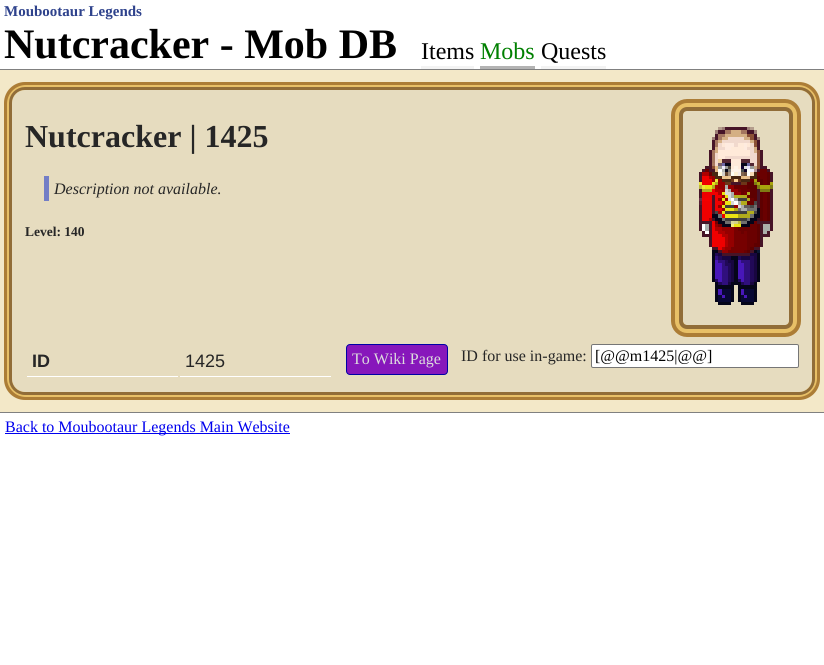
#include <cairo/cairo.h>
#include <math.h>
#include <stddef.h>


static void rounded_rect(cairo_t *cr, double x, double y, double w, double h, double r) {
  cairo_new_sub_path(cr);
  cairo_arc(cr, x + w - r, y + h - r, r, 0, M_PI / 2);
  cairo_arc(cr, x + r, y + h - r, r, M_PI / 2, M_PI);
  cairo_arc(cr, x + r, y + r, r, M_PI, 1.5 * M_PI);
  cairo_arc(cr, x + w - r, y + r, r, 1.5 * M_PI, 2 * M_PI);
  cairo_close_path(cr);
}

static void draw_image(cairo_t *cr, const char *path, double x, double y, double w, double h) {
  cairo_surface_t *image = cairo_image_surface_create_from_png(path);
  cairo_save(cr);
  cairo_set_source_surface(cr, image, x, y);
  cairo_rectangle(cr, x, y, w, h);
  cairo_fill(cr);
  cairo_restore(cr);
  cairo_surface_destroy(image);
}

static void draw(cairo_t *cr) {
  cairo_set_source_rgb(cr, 1, 1, 1);
  cairo_paint(cr);
  cairo_set_source_rgb(cr, 128 / 255.0, 128 / 255.0, 128 / 255.0);
  cairo_rectangle(cr, 0, 69, 824, 1);
  cairo_fill(cr);
  cairo_set_source_rgb(cr, 243 / 255.0, 243 / 255.0, 243 / 255.0);
  cairo_rectangle(cr, 421, 66, 53, 3);
  cairo_fill(cr);
  cairo_set_source_rgb(cr, 179 / 255.0, 179 / 255.0, 179 / 255.0);
  cairo_rectangle(cr, 480, 66, 55, 3);
  cairo_fill(cr);
  cairo_set_source_rgb(cr, 243 / 255.0, 243 / 255.0, 243 / 255.0);
  cairo_rectangle(cr, 541, 66, 65, 3);
  cairo_fill(cr);
  cairo_set_source_rgb(cr, 243 / 255.0, 232 / 255.0, 200 / 255.0);
  cairo_rectangle(cr, 0, 70, 824, 342);
  cairo_fill(cr);
  rounded_rect(cr, 8, 86, 808, 310, 17);
  cairo_set_source_rgb(cr, 172 / 255.0, 125 / 255.0, 54 / 255.0);
  cairo_set_line_width(cr, 8);
  cairo_stroke(cr);
  rounded_rect(cr, 9.5, 87.5, 805, 307, 16.5);
  cairo_set_source_rgb(cr, 232 / 255.0, 192 / 255.0, 103 / 255.0);
  cairo_set_line_width(cr, 5);
  cairo_stroke(cr);
  rounded_rect(cr, 10.5, 88.5, 803, 305, 14.5);
  cairo_set_source_rgb(cr, 145 / 255.0, 109 / 255.0, 56 / 255.0);
  cairo_set_line_width(cr, 3);
  cairo_stroke(cr);
  cairo_set_source_rgba(cr, 225 / 255.0, 216 / 255.0, 188 / 255.0, 0.74);
  rounded_rect(cr, 12, 90, 800, 302, 13);
  cairo_fill(cr);
  cairo_set_source_rgb(cr, 115 / 255.0, 126 / 255.0, 198 / 255.0);
  cairo_rectangle(cr, 44, 176, 5, 25);
  cairo_fill(cr);
  rounded_rect(cr, 677, 105, 118, 226, 10);
  cairo_set_source_rgb(cr, 172 / 255.0, 125 / 255.0, 54 / 255.0);
  cairo_set_line_width(cr, 12);
  cairo_stroke(cr);
  rounded_rect(cr, 679, 107, 114, 222, 8);
  cairo_set_source_rgb(cr, 232 / 255.0, 192 / 255.0, 103 / 255.0);
  cairo_set_line_width(cr, 8);
  cairo_stroke(cr);
  rounded_rect(cr, 681, 109, 110, 218, 6);
  cairo_set_source_rgb(cr, 145 / 255.0, 109 / 255.0, 56 / 255.0);
  cairo_set_line_width(cr, 4);
  cairo_stroke(cr);
  cairo_set_source_rgba(cr, 225 / 255.0, 216 / 255.0, 188 / 255.0, 0.4);
  rounded_rect(cr, 683, 111, 106, 214, 4);
  cairo_fill(cr);
  draw_image(cr, "images/1.png", 699, 127, 74, 178);
  cairo_set_source_rgb(cr, 1, 1, 1);
  cairo_rectangle(cr, 27, 376, 151, 1);
  cairo_fill(cr);
  cairo_rectangle(cr, 180, 376, 151, 1);
  cairo_fill(cr);
  cairo_set_source_rgb(cr, 135 / 255.0, 23 / 255.0, 187 / 255.0);
  rounded_rect(cr, 346.5, 344.5, 101, 30, 3.5);
  cairo_fill_preserve(cr);
  cairo_set_source_rgb(cr, 0, 0, 166 / 255.0);
  cairo_set_line_width(cr, 1);
  cairo_stroke(cr);
  cairo_set_source_rgb(cr, 1, 1, 1);
  rounded_rect(cr, 591.5, 344.5, 207, 23, 1.5);
  cairo_fill_preserve(cr);
  cairo_set_source_rgb(cr, 118 / 255.0, 118 / 255.0, 118 / 255.0);
  cairo_stroke(cr);
  cairo_set_source_rgb(cr, 128 / 255.0, 128 / 255.0, 128 / 255.0);
  cairo_rectangle(cr, 0, 412, 824, 1);
  cairo_fill(cr);
  cairo_set_source_rgb(cr, 0, 0, 238 / 255.0);
  cairo_rectangle(cr, 5, 433, 285, 1);
  cairo_fill(cr);
  cairo_select_font_face(cr, "Liberation Serif", CAIRO_FONT_SLANT_NORMAL, CAIRO_FONT_WEIGHT_BOLD);
  cairo_set_font_size(cr, 15);
  cairo_set_source_rgb(cr, 46 / 255.0, 66 / 255.0, 140 / 255.0);
  cairo_move_to(cr, 4, 16);
  cairo_show_text(cr, "Moubootaur Legends");
  cairo_set_font_size(cr, 42);
  cairo_set_source_rgb(cr, 0, 0, 0);
  cairo_move_to(cr, 4, 58);
  cairo_show_text(cr, "Nutcracker - Mob DB");
  cairo_select_font_face(cr, "Liberation Serif", CAIRO_FONT_SLANT_NORMAL, CAIRO_FONT_WEIGHT_NORMAL);
  cairo_set_font_size(cr, 24);
  cairo_move_to(cr, 421, 59);
  cairo_show_text(cr, "Items");
  cairo_set_source_rgb(cr, 0, 128 / 255.0, 0);
  cairo_move_to(cr, 480, 59);
  cairo_show_text(cr, "Mobs");
  cairo_set_source_rgb(cr, 0, 0, 0);
  cairo_move_to(cr, 541, 59);
  cairo_show_text(cr, "Quests");
  cairo_select_font_face(cr, "Liberation Serif", CAIRO_FONT_SLANT_NORMAL, CAIRO_FONT_WEIGHT_BOLD);
  cairo_set_font_size(cr, 32);
  cairo_set_source_rgb(cr, 38 / 255.0, 38 / 255.0, 38 / 255.0);
  cairo_move_to(cr, 25, 147);
  cairo_show_text(cr, "Nutcracker | 1425");
  cairo_select_font_face(cr, "Liberation Serif", CAIRO_FONT_SLANT_ITALIC, CAIRO_FONT_WEIGHT_NORMAL);
  cairo_set_font_size(cr, 16);
  cairo_move_to(cr, 54, 194);
  cairo_show_text(cr, "Description not available.");
  cairo_select_font_face(cr, "Liberation Serif", CAIRO_FONT_SLANT_NORMAL, CAIRO_FONT_WEIGHT_BOLD);
  cairo_set_font_size(cr, 13.5);
  cairo_move_to(cr, 25, 236);
  cairo_show_text(cr, "Level: 140");
  cairo_select_font_face(cr, "Liberation Sans", CAIRO_FONT_SLANT_NORMAL, CAIRO_FONT_WEIGHT_BOLD);
  cairo_set_font_size(cr, 18);
  cairo_move_to(cr, 32, 367);
  cairo_show_text(cr, "ID");
  cairo_select_font_face(cr, "Liberation Sans", CAIRO_FONT_SLANT_NORMAL, CAIRO_FONT_WEIGHT_NORMAL);
  cairo_move_to(cr, 185, 367);
  cairo_show_text(cr, "1425");
  cairo_select_font_face(cr, "Liberation Serif", CAIRO_FONT_SLANT_NORMAL, CAIRO_FONT_WEIGHT_NORMAL);
  cairo_set_font_size(cr, 16);
  cairo_set_source_rgb(cr, 221 / 255.0, 221 / 255.0, 221 / 255.0);
  cairo_move_to(cr, 352, 364);
  cairo_show_text(cr, "To Wiki Page");
  cairo_set_source_rgb(cr, 38 / 255.0, 38 / 255.0, 38 / 255.0);
  cairo_move_to(cr, 461, 361);
  cairo_show_text(cr, "ID for use in-game:");
  cairo_set_source_rgb(cr, 0, 0, 0);
  cairo_move_to(cr, 595, 361);
  cairo_show_text(cr, "[@@m1425|@@]");
  cairo_set_source_rgb(cr, 0, 0, 238 / 255.0);
  cairo_move_to(cr, 5, 432);
  cairo_show_text(cr, "Back to Moubootaur Legends Main Website");
}

int main(void) {
  cairo_surface_t *surface = cairo_image_surface_create(CAIRO_FORMAT_RGB24, 824, 665);
  cairo_t *cr = cairo_create(surface);
  cairo_font_options_t *options = cairo_font_options_create();
  cairo_font_options_set_hint_metrics(options, CAIRO_HINT_METRICS_OFF);
  cairo_font_options_set_hint_style(options, CAIRO_HINT_STYLE_NONE);
  cairo_set_font_options(cr, options);
  cairo_set_miter_limit(cr, 4);
  draw(cr);
  cairo_surface_write_to_png(surface, "out.png");
  cairo_font_options_destroy(options);
  cairo_destroy(cr);
  cairo_surface_destroy(surface);
  return 0;
}
